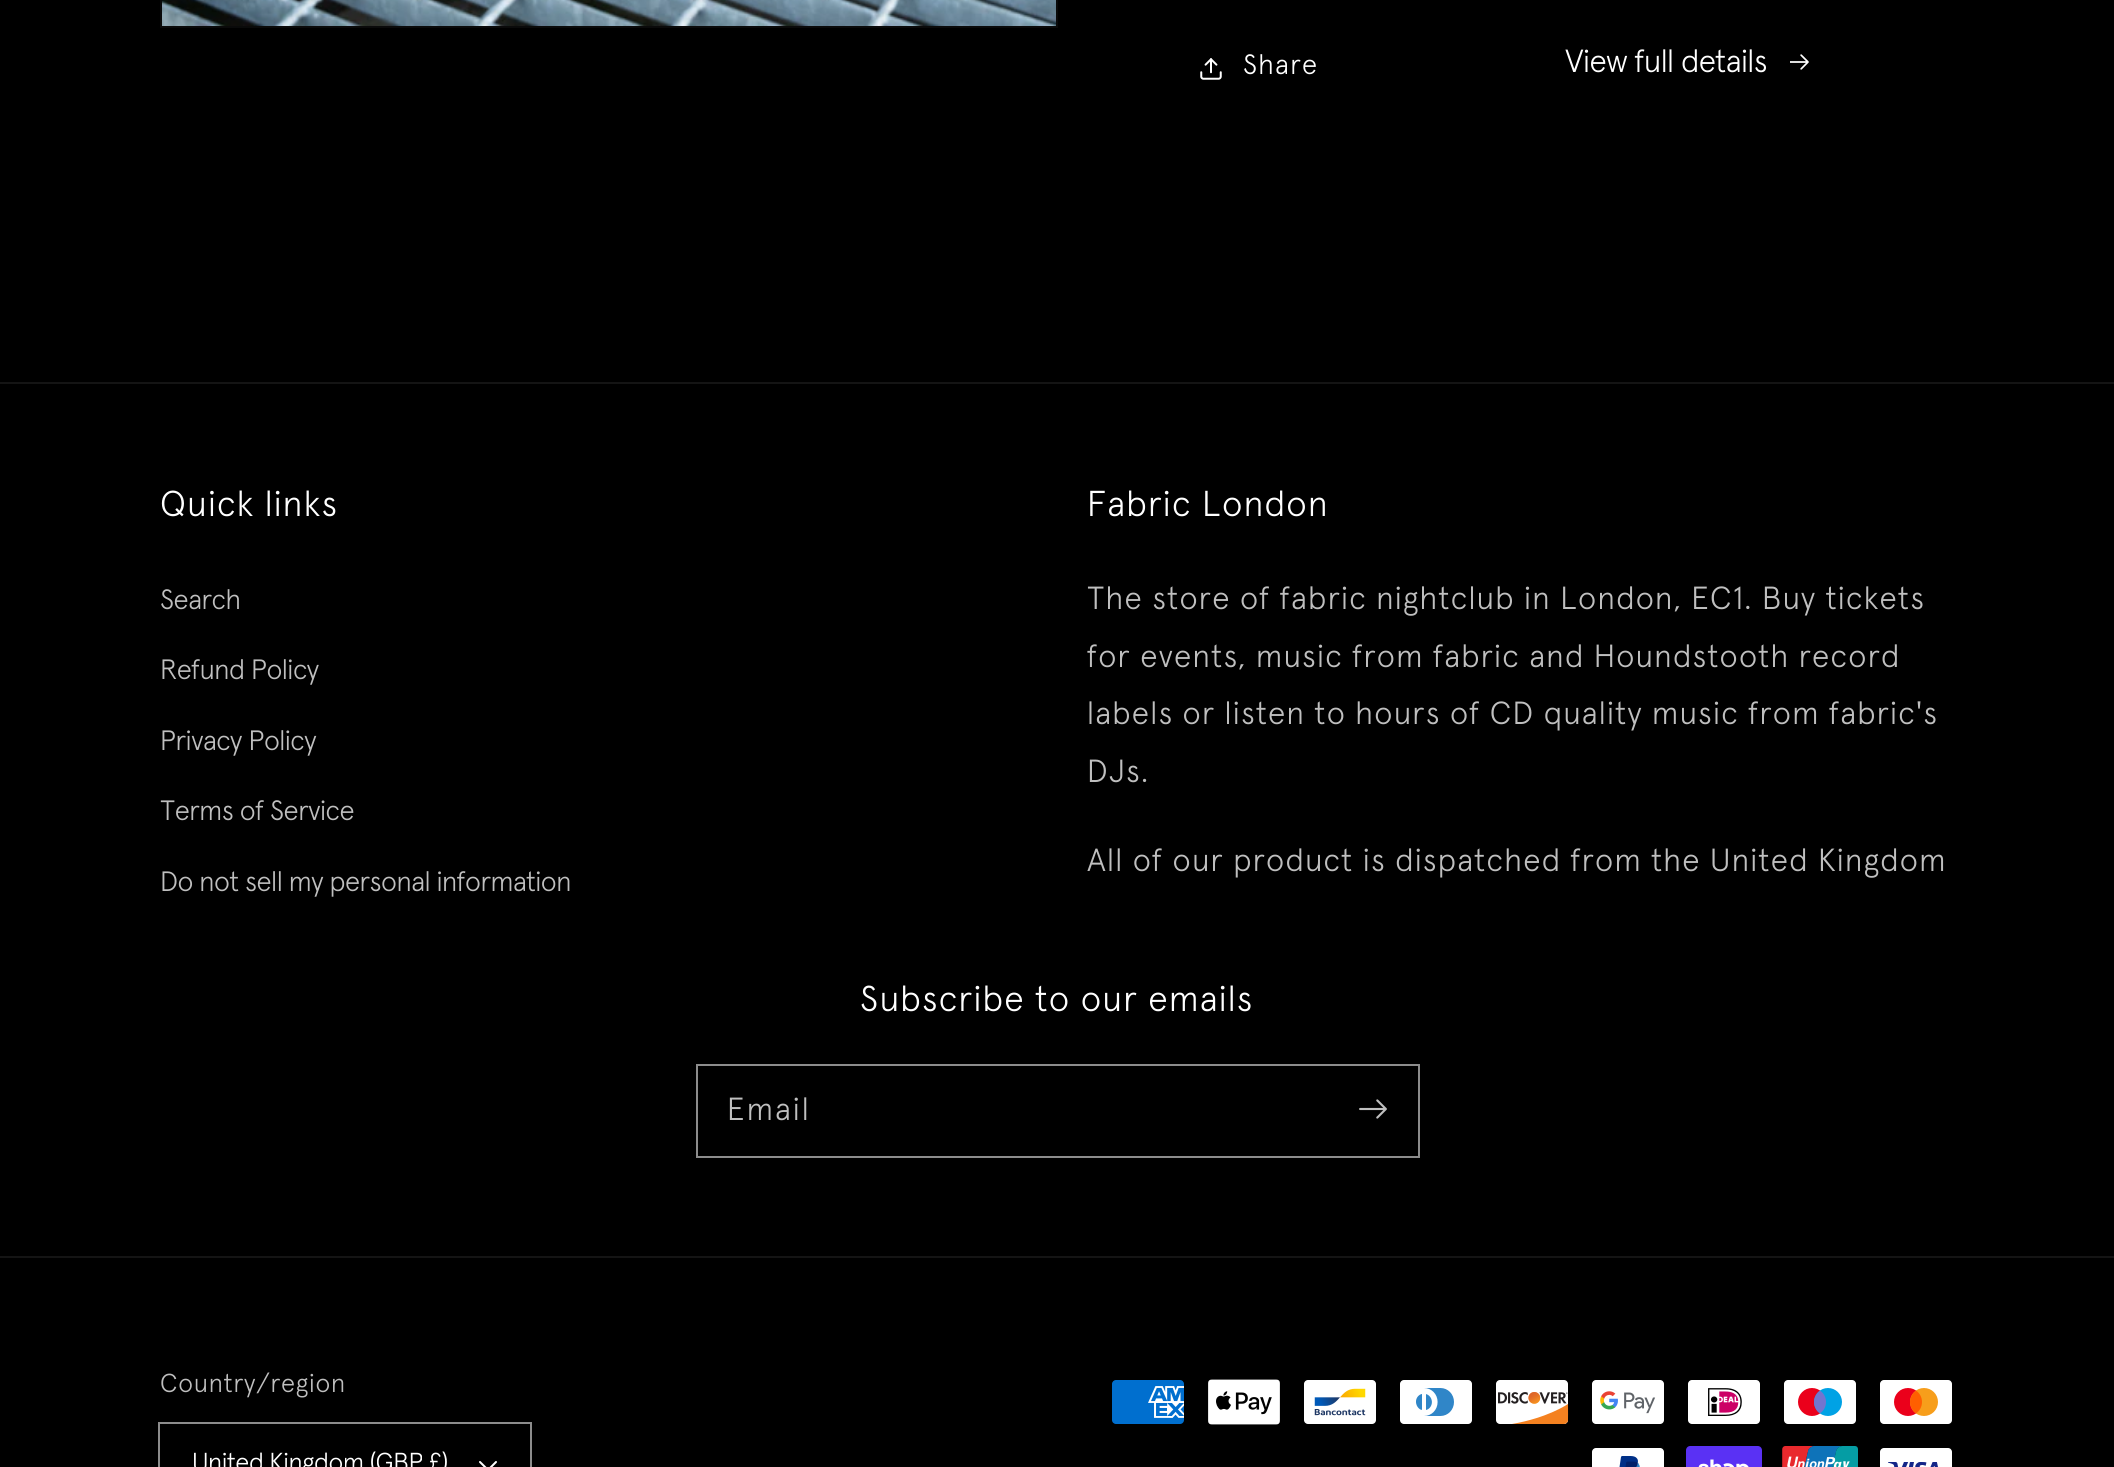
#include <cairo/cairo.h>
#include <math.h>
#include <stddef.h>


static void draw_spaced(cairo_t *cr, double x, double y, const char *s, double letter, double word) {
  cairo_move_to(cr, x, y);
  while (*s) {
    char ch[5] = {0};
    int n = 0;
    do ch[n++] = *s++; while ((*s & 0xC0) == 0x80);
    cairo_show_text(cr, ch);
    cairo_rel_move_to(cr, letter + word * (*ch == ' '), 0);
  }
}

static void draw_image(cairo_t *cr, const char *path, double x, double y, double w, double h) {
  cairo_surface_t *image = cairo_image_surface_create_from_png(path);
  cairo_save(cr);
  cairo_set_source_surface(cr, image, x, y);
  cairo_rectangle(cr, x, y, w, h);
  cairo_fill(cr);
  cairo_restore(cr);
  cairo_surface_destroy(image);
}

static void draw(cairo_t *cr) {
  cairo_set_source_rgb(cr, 0, 0, 0);
  cairo_paint(cr);
  cairo_rectangle(cr, 161, -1, 896, 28);
  cairo_set_source_rgb(cr, 10 / 255.0, 10 / 255.0, 10 / 255.0);
  cairo_stroke(cr);
  draw_image(cr, "images/1.png", 162, 0, 894, 26);
  draw_image(cr, "images/2.png", 1200, 58, 22, 22);
  draw_image(cr, "images/3.png", 1790, 54, 19, 16);
  cairo_set_source_rgb(cr, 20 / 255.0, 20 / 255.0, 20 / 255.0);
  cairo_rectangle(cr, 0, 382, 2114, 2);
  cairo_fill(cr);
  cairo_rectangle(cr, 697, 1065, 722, 92);
  cairo_set_source_rgb(cr, 140 / 255.0, 140 / 255.0, 140 / 255.0);
  cairo_stroke(cr);
  draw_image(cr, "images/4.png", 1359, 1099, 28, 20);
  cairo_set_source_rgb(cr, 20 / 255.0, 20 / 255.0, 20 / 255.0);
  cairo_rectangle(cr, 0, 1256, 2114, 2);
  cairo_fill(cr);
  cairo_rectangle(cr, 159, 1423, 372, 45);
  cairo_set_source_rgb(cr, 140 / 255.0, 140 / 255.0, 140 / 255.0);
  cairo_stroke(cr);
  draw_image(cr, "images/5.png", 479, 1461, 18, 6);
  draw_image(cr, "images/6.png", 1112, 1380, 72, 44);
  draw_image(cr, "images/7.png", 1208, 1379, 72, 46);
  draw_image(cr, "images/8.png", 1304, 1380, 72, 44);
  draw_image(cr, "images/9.png", 1400, 1380, 72, 44);
  draw_image(cr, "images/10.png", 1496, 1380, 73, 44);
  draw_image(cr, "images/11.png", 1592, 1380, 72, 44);
  draw_image(cr, "images/12.png", 1688, 1380, 72, 44);
  draw_image(cr, "images/13.png", 1784, 1380, 72, 44);
  draw_image(cr, "images/14.png", 1880, 1380, 72, 44);
  draw_image(cr, "images/15.png", 1592, 1448, 72, 19);
  draw_image(cr, "images/16.png", 1686, 1446, 76, 21);
  draw_image(cr, "images/17.png", 1782, 1446, 76, 21);
  draw_image(cr, "images/18.png", 1880, 1448, 72, 19);
  cairo_select_font_face(cr, "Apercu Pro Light", CAIRO_FONT_SLANT_NORMAL, CAIRO_FONT_WEIGHT_NORMAL);
  cairo_set_font_size(cr, 28);
  cairo_set_source_rgb(cr, 1, 1, 1);
  draw_spaced(cr, 1243, 74, "Share", 1.2, 0);
  cairo_set_font_size(cr, 32);
  draw_spaced(cr, 1565, 72, "View full details", -0.6, 0);
  cairo_set_font_size(cr, 36);
  draw_spaced(cr, 160, 516, "Quick links", 1.2, 0);
  cairo_set_font_size(cr, 28);
  cairo_set_source_rgb(cr, 191 / 255.0, 191 / 255.0, 191 / 255.0);
  draw_spaced(cr, 160, 609, "Search", -0.55, 0);
  draw_spaced(cr, 160, 679, "Refund Policy", -0.55, 0);
  draw_spaced(cr, 160, 750, "Privacy Policy", -0.55, 0);
  draw_spaced(cr, 160, 820, "Terms of Service", -0.55, 0);
  draw_spaced(cr, 160, 891, "Do not sell my personal information", -0.55, 0);
  cairo_set_font_size(cr, 36);
  cairo_set_source_rgb(cr, 1, 1, 1);
  draw_spaced(cr, 1087, 516, "Fabric London", 1.2, 0);
  cairo_set_font_size(cr, 32);
  cairo_set_source_rgb(cr, 191 / 255.0, 191 / 255.0, 191 / 255.0);
  draw_spaced(cr, 1087, 609, "The store of fabric nightclub in London, EC1. Buy tickets", 1.2, 0);
  draw_spaced(cr, 1087, 667, "for events, music from fabric and Houndstooth record", 1.2, 0);
  draw_spaced(cr, 1087, 724, "labels or listen to hours of CD quality music from fabric's", 1.2, 0);
  draw_spaced(cr, 1087, 782, "DJs.", 1.2, 0);
  draw_spaced(cr, 1087, 871, "All of our product is dispatched from the United Kingdom", 1.2, 0);
  cairo_set_font_size(cr, 36);
  cairo_set_source_rgb(cr, 1, 1, 1);
  draw_spaced(cr, 860, 1011, "Subscribe to our emails", 1.2, 0);
  cairo_set_font_size(cr, 32);
  cairo_set_source_rgb(cr, 191 / 255.0, 191 / 255.0, 191 / 255.0);
  draw_spaced(cr, 727, 1120, "Email", 2, 0);
  cairo_set_font_size(cr, 26);
  draw_spaced(cr, 160, 1392, "Country/region", 0.75, 0);
  cairo_set_source_rgb(cr, 1, 1, 1);
  draw_spaced(cr, 192, 1471, "United Kingdom (GBP £)", -0.5, 0);
}

int main(void) {
  cairo_surface_t *surface = cairo_image_surface_create(CAIRO_FORMAT_RGB24, 2114, 1467);
  cairo_t *cr = cairo_create(surface);
  cairo_font_options_t *options = cairo_font_options_create();
  cairo_font_options_set_hint_metrics(options, CAIRO_HINT_METRICS_OFF);
  cairo_font_options_set_hint_style(options, CAIRO_HINT_STYLE_NONE);
  cairo_set_font_options(cr, options);
  cairo_set_miter_limit(cr, 4);
  draw(cr);
  cairo_surface_write_to_png(surface, "out.png");
  cairo_font_options_destroy(options);
  cairo_destroy(cr);
  cairo_surface_destroy(surface);
  return 0;
}
